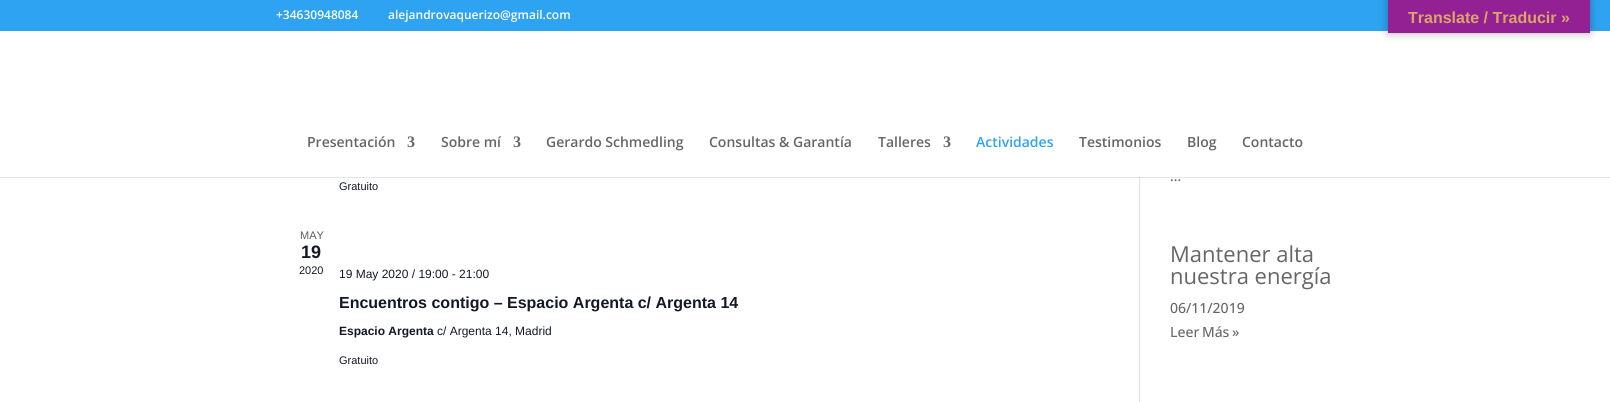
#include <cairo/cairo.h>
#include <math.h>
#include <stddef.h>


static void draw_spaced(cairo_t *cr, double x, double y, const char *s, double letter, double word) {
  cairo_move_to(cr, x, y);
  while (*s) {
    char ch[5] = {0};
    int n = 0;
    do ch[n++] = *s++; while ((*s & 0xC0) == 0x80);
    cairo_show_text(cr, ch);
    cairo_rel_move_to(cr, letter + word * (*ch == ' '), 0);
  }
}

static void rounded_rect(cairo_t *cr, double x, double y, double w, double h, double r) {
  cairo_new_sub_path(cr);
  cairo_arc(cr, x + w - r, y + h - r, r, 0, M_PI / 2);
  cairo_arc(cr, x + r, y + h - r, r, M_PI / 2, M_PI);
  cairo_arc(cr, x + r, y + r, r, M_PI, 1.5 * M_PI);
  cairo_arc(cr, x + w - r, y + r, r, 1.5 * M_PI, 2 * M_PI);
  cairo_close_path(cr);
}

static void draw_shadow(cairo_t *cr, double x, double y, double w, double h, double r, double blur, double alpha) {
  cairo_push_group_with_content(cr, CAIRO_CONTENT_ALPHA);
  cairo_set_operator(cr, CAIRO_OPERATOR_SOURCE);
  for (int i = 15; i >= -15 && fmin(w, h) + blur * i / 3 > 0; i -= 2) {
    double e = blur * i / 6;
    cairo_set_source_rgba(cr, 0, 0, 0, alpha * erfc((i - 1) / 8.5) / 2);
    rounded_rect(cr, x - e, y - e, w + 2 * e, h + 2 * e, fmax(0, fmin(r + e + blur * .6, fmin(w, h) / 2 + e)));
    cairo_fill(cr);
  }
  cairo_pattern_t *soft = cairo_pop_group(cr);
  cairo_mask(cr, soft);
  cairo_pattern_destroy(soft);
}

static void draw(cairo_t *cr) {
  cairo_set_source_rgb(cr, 1, 1, 1);
  cairo_paint(cr);
  cairo_set_source_rgb(cr, 46 / 255.0, 163 / 255.0, 242 / 255.0);
  cairo_rectangle(cr, 0, 0, 1610, 31);
  cairo_fill(cr);
  cairo_set_source_rgb(cr, 226 / 255.0, 226 / 255.0, 226 / 255.0);
  cairo_rectangle(cr, 1139, 177, 1, 225);
  cairo_fill(cr);
  cairo_set_source_rgba(cr, 0, 0, 0, 0.1);
  cairo_rectangle(cr, 0, 177, 1610, 1);
  cairo_fill(cr);
  cairo_set_source_rgb(cr, 0, 0, 0);
  draw_shadow(cr, 1388, 0, 202, 33, 0, 4.5, 0.3);
  cairo_set_source_rgb(cr, 148 / 255.0, 33 / 255.0, 147 / 255.0);
  cairo_rectangle(cr, 1388, 0, 202, 33);
  cairo_fill(cr);
  cairo_select_font_face(cr, "Open Sans SemiBold", CAIRO_FONT_SLANT_NORMAL, CAIRO_FONT_WEIGHT_NORMAL);
  cairo_set_font_size(cr, 12);
  cairo_set_source_rgb(cr, 1, 1, 1);
  cairo_move_to(cr, 276, 19);
  cairo_show_text(cr, "+34630948084");
  cairo_move_to(cr, 388, 19);
  cairo_show_text(cr, "alejandrovaquerizo@gmail.com");
  cairo_set_font_size(cr, 14);
  cairo_set_source_rgb(cr, 102 / 255.0, 102 / 255.0, 102 / 255.0);
  cairo_move_to(cr, 307, 147);
  cairo_show_text(cr, "Presentación");
  cairo_select_font_face(cr, "Liberation Serif", CAIRO_FONT_SLANT_NORMAL, CAIRO_FONT_WEIGHT_BOLD);
  cairo_set_font_size(cr, 16);
  cairo_move_to(cr, 407, 147);
  cairo_show_text(cr, "3");
  cairo_select_font_face(cr, "Open Sans SemiBold", CAIRO_FONT_SLANT_NORMAL, CAIRO_FONT_WEIGHT_NORMAL);
  cairo_set_font_size(cr, 14);
  cairo_move_to(cr, 441, 147);
  cairo_show_text(cr, "Sobre mí");
  cairo_select_font_face(cr, "Liberation Serif", CAIRO_FONT_SLANT_NORMAL, CAIRO_FONT_WEIGHT_BOLD);
  cairo_set_font_size(cr, 16);
  cairo_move_to(cr, 513, 147);
  cairo_show_text(cr, "3");
  cairo_select_font_face(cr, "Open Sans SemiBold", CAIRO_FONT_SLANT_NORMAL, CAIRO_FONT_WEIGHT_NORMAL);
  cairo_set_font_size(cr, 14);
  cairo_move_to(cr, 546, 147);
  cairo_show_text(cr, "Gerardo Schmedling");
  cairo_move_to(cr, 709, 147);
  cairo_show_text(cr, "Consultas & Garantía");
  cairo_move_to(cr, 878, 147);
  cairo_show_text(cr, "Talleres");
  cairo_select_font_face(cr, "Liberation Serif", CAIRO_FONT_SLANT_NORMAL, CAIRO_FONT_WEIGHT_BOLD);
  cairo_set_font_size(cr, 16);
  cairo_move_to(cr, 943, 147);
  cairo_show_text(cr, "3");
  cairo_select_font_face(cr, "Open Sans SemiBold", CAIRO_FONT_SLANT_NORMAL, CAIRO_FONT_WEIGHT_NORMAL);
  cairo_set_font_size(cr, 14);
  cairo_set_source_rgb(cr, 46 / 255.0, 163 / 255.0, 242 / 255.0);
  cairo_move_to(cr, 976, 147);
  cairo_show_text(cr, "Actividades");
  cairo_set_source_rgb(cr, 102 / 255.0, 102 / 255.0, 102 / 255.0);
  cairo_move_to(cr, 1079, 147);
  cairo_show_text(cr, "Testimonios");
  cairo_move_to(cr, 1187, 147);
  cairo_show_text(cr, "Blog");
  cairo_move_to(cr, 1242, 147);
  cairo_show_text(cr, "Contacto");
  cairo_select_font_face(cr, "Liberation Sans", CAIRO_FONT_SLANT_NORMAL, CAIRO_FONT_WEIGHT_NORMAL);
  cairo_set_font_size(cr, 11);
  cairo_set_source_rgb(cr, 20 / 255.0, 24 / 255.0, 39 / 255.0);
  cairo_move_to(cr, 339, 190);
  cairo_show_text(cr, "Gratuito");
  cairo_set_source_rgb(cr, 93 / 255.0, 93 / 255.0, 93 / 255.0);
  cairo_move_to(cr, 300, 239);
  cairo_show_text(cr, "MAY");
  cairo_select_font_face(cr, "Liberation Sans", CAIRO_FONT_SLANT_NORMAL, CAIRO_FONT_WEIGHT_BOLD);
  cairo_set_font_size(cr, 18);
  cairo_set_source_rgb(cr, 20 / 255.0, 24 / 255.0, 39 / 255.0);
  cairo_move_to(cr, 301, 258);
  cairo_show_text(cr, "19");
  cairo_select_font_face(cr, "Liberation Sans", CAIRO_FONT_SLANT_NORMAL, CAIRO_FONT_WEIGHT_NORMAL);
  cairo_set_font_size(cr, 11);
  cairo_move_to(cr, 299, 274);
  cairo_show_text(cr, "2020");
  cairo_set_font_size(cr, 12);
  cairo_move_to(cr, 339, 278);
  cairo_show_text(cr, "19 May 2020 / 19:00 - 21:00");
  cairo_select_font_face(cr, "Liberation Sans", CAIRO_FONT_SLANT_NORMAL, CAIRO_FONT_WEIGHT_BOLD);
  cairo_set_font_size(cr, 16);
  cairo_move_to(cr, 339, 308);
  cairo_show_text(cr, "Encuentros contigo – Espacio Argenta c/ Argenta 14");
  cairo_set_font_size(cr, 12);
  cairo_move_to(cr, 339, 335);
  cairo_show_text(cr, "Espacio Argenta");
  cairo_select_font_face(cr, "Liberation Sans", CAIRO_FONT_SLANT_NORMAL, CAIRO_FONT_WEIGHT_NORMAL);
  cairo_move_to(cr, 437, 335);
  cairo_show_text(cr, "c/ Argenta 14, Madrid");
  cairo_set_font_size(cr, 11);
  cairo_move_to(cr, 339, 364);
  cairo_show_text(cr, "Gratuito");
  cairo_select_font_face(cr, "Open Sans Medium", CAIRO_FONT_SLANT_NORMAL, CAIRO_FONT_WEIGHT_NORMAL);
  cairo_set_font_size(cr, 14);
  cairo_set_source_rgb(cr, 102 / 255.0, 102 / 255.0, 102 / 255.0);
  cairo_move_to(cr, 1170, 181);
  cairo_show_text(cr, "…");
  cairo_select_font_face(cr, "Open Sans", CAIRO_FONT_SLANT_NORMAL, CAIRO_FONT_WEIGHT_NORMAL);
  cairo_set_font_size(cr, 22);
  cairo_move_to(cr, 1170, 262);
  cairo_show_text(cr, "Mantener alta");
  cairo_move_to(cr, 1170, 284);
  cairo_show_text(cr, "nuestra energía");
  cairo_select_font_face(cr, "Open Sans Medium", CAIRO_FONT_SLANT_NORMAL, CAIRO_FONT_WEIGHT_NORMAL);
  cairo_set_font_size(cr, 14);
  cairo_move_to(cr, 1170, 313);
  cairo_show_text(cr, "06/11/2019");
  draw_spaced(cr, 1170, 337, "Leer Más »", 0, -1);
  cairo_select_font_face(cr, "Liberation Sans", CAIRO_FONT_SLANT_NORMAL, CAIRO_FONT_WEIGHT_BOLD);
  cairo_set_font_size(cr, 16);
  cairo_set_source_rgb(cr, 217 / 255.0, 166 / 255.0, 103 / 255.0);
  cairo_move_to(cr, 1408, 23);
  cairo_show_text(cr, "Translate / Traducir »");
}

int main(void) {
  cairo_surface_t *surface = cairo_image_surface_create(CAIRO_FORMAT_RGB24, 1610, 402);
  cairo_t *cr = cairo_create(surface);
  cairo_font_options_t *options = cairo_font_options_create();
  cairo_font_options_set_hint_metrics(options, CAIRO_HINT_METRICS_OFF);
  cairo_font_options_set_hint_style(options, CAIRO_HINT_STYLE_NONE);
  cairo_set_font_options(cr, options);
  cairo_set_miter_limit(cr, 4);
  draw(cr);
  cairo_surface_write_to_png(surface, "out.png");
  cairo_font_options_destroy(options);
  cairo_destroy(cr);
  cairo_surface_destroy(surface);
  return 0;
}
